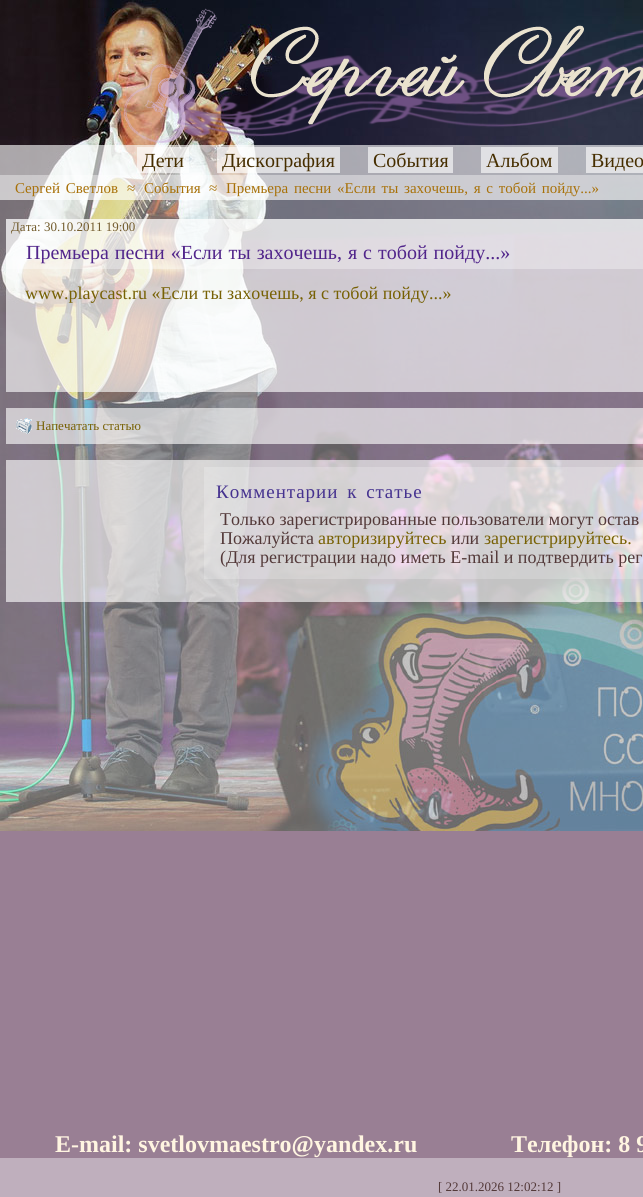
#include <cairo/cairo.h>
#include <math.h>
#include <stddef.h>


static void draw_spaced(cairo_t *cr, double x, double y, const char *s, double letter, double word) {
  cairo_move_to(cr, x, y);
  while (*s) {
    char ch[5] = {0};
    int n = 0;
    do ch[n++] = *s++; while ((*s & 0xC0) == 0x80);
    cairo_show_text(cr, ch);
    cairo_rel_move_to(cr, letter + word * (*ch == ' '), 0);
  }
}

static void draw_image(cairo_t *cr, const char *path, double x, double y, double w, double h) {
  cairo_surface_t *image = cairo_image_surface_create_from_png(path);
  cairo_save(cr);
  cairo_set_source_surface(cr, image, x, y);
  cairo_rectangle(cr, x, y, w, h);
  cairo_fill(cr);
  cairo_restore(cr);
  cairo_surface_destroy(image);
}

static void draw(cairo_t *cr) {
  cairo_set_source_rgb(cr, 90 / 255.0, 48 / 255.0, 83 / 255.0);
  cairo_paint(cr);
  draw_image(cr, "images/1.png", 0, 0, 643, 831);
  draw_image(cr, "images/2.png", 123, 8, 520, 135);
  cairo_set_source_rgba(cr, 1, 1, 1, 0.62);
  cairo_rectangle(cr, 0, 145, 643, 30);
  cairo_fill(cr);
  cairo_rectangle(cr, 137, 147, 52, 26);
  cairo_fill(cr);
  cairo_rectangle(cr, 217, 147, 123, 26);
  cairo_fill(cr);
  cairo_rectangle(cr, 368, 147, 85, 26);
  cairo_fill(cr);
  cairo_rectangle(cr, 481, 147, 77, 26);
  cairo_fill(cr);
  cairo_rectangle(cr, 586, 147, 57, 26);
  cairo_fill(cr);
  cairo_set_source_rgba(cr, 1, 1, 1, 0.38);
  cairo_rectangle(cr, 0, 175, 643, 956);
  cairo_fill(cr);
  cairo_set_source_rgba(cr, 1, 1, 1, 0.62);
  cairo_rectangle(cr, 0, 175, 643, 25);
  cairo_fill(cr);
  cairo_rectangle(cr, 6, 219, 637, 173);
  cairo_fill(cr);
  cairo_set_source_rgba(cr, 1, 1, 1, 0.33);
  cairo_rectangle(cr, 6, 219, 637, 50);
  cairo_fill(cr);
  cairo_set_source_rgba(cr, 1, 1, 1, 0.62);
  cairo_rectangle(cr, 6, 408, 637, 36);
  cairo_fill(cr);
  draw_image(cr, "images/3.png", 16, 418, 16, 16);
  cairo_rectangle(cr, 6, 460, 637, 142);
  cairo_fill(cr);
  cairo_set_source_rgba(cr, 1, 1, 1, 0.21);
  cairo_rectangle(cr, 204, 467, 439, 112);
  cairo_fill(cr);
  cairo_set_source_rgb(cr, 153 / 255.0, 127 / 255.0, 148 / 255.0);
  cairo_rectangle(cr, 0, 1131, 643, 27);
  cairo_fill(cr);
  cairo_set_source_rgb(cr, 191 / 255.0, 175 / 255.0, 189 / 255.0);
  cairo_rectangle(cr, 0, 1158, 643, 39);
  cairo_fill(cr);
  cairo_select_font_face(cr, "Liberation Serif", CAIRO_FONT_SLANT_NORMAL, CAIRO_FONT_WEIGHT_NORMAL);
  cairo_set_font_size(cr, 20);
  cairo_set_source_rgb(cr, 70 / 255.0, 46 / 255.0, 0);
  cairo_move_to(cr, 142, 167);
  cairo_show_text(cr, "Дети");
  cairo_move_to(cr, 222, 167);
  cairo_show_text(cr, "Дискография");
  cairo_move_to(cr, 373, 167);
  cairo_show_text(cr, "События");
  cairo_move_to(cr, 486, 167);
  cairo_show_text(cr, "Альбом");
  cairo_move_to(cr, 591, 167);
  cairo_show_text(cr, "Видео");
  cairo_set_font_size(cr, 15);
  cairo_set_source_rgb(cr, 168 / 255.0, 113 / 255.0, 9 / 255.0);
  draw_spaced(cr, 15, 193, "Сергей Светлов", 0, 2);
  cairo_move_to(cr, 127, 193);
  cairo_show_text(cr, "≈");
  cairo_move_to(cr, 144, 193);
  cairo_show_text(cr, "События");
  cairo_move_to(cr, 209, 193);
  cairo_show_text(cr, "≈");
  draw_spaced(cr, 226, 193, "Премьера песни «Если ты захочешь, я с тобой пойду...»", 0, 2);
  cairo_set_font_size(cr, 13);
  cairo_set_source_rgb(cr, 114 / 255.0, 91 / 255.0, 44 / 255.0);
  cairo_move_to(cr, 11, 231);
  cairo_show_text(cr, "Дата: 30.10.2011 19:00");
  cairo_set_font_size(cr, 20);
  cairo_set_source_rgb(cr, 81 / 255.0, 37 / 255.0, 139 / 255.0);
  draw_spaced(cr, 26, 259, "Премьера песни «Если ты захочешь, я с тобой пойду...»", 0, 1);
  cairo_set_font_size(cr, 18);
  cairo_set_source_rgb(cr, 119 / 255.0, 97 / 255.0, 4 / 255.0);
  cairo_move_to(cr, 25, 299);
  cairo_show_text(cr, "www.playcast.ru «Если ты захочешь, я с тобой пойду...»");
  cairo_set_font_size(cr, 13);
  cairo_move_to(cr, 36, 430);
  cairo_show_text(cr, "Напечатать статью");
  cairo_set_font_size(cr, 19);
  cairo_set_source_rgb(cr, 69 / 255.0, 50 / 255.0, 143 / 255.0);
  draw_spaced(cr, 216, 498, "Комментарии к статье", 1, 3);
  cairo_set_font_size(cr, 18);
  cairo_set_source_rgb(cr, 83 / 255.0, 57 / 255.0, 57 / 255.0);
  cairo_move_to(cr, 220, 525);
  cairo_show_text(cr, "Только зарегистрированные пользователи могут остав");
  cairo_move_to(cr, 220, 544);
  cairo_show_text(cr, "Пожалуйста");
  cairo_set_source_rgb(cr, 119 / 255.0, 97 / 255.0, 4 / 255.0);
  cairo_move_to(cr, 318, 544);
  cairo_show_text(cr, "авторизируйтесь");
  cairo_set_source_rgb(cr, 83 / 255.0, 57 / 255.0, 57 / 255.0);
  cairo_move_to(cr, 451, 544);
  cairo_show_text(cr, "или");
  cairo_set_source_rgb(cr, 119 / 255.0, 97 / 255.0, 4 / 255.0);
  cairo_move_to(cr, 484, 544);
  cairo_show_text(cr, "зарегистрируйтесь.");
  cairo_set_source_rgb(cr, 83 / 255.0, 57 / 255.0, 57 / 255.0);
  cairo_move_to(cr, 220, 563);
  cairo_show_text(cr, "(Для регистрации надо иметь E-mail и подтвердить рег");
  cairo_select_font_face(cr, "Liberation Serif", CAIRO_FONT_SLANT_NORMAL, CAIRO_FONT_WEIGHT_BOLD);
  cairo_set_font_size(cr, 24);
  cairo_set_source_rgb(cr, 1, 245 / 255.0, 225 / 255.0);
  cairo_move_to(cr, 55, 1152);
  cairo_show_text(cr, "E-mail: svetlovmaestro@yandex.ru");
  cairo_move_to(cr, 511, 1152);
  cairo_show_text(cr, "Телефон: 8 9");
  cairo_select_font_face(cr, "Liberation Serif", CAIRO_FONT_SLANT_NORMAL, CAIRO_FONT_WEIGHT_NORMAL);
  cairo_set_font_size(cr, 13);
  cairo_set_source_rgb(cr, 83 / 255.0, 57 / 255.0, 57 / 255.0);
  cairo_move_to(cr, 438, 1191);
  cairo_show_text(cr, "[ 22.01.2026 12:02:12 ]");
}

int main(void) {
  cairo_surface_t *surface = cairo_image_surface_create(CAIRO_FORMAT_RGB24, 643, 1197);
  cairo_t *cr = cairo_create(surface);
  cairo_font_options_t *options = cairo_font_options_create();
  cairo_font_options_set_hint_metrics(options, CAIRO_HINT_METRICS_OFF);
  cairo_font_options_set_hint_style(options, CAIRO_HINT_STYLE_NONE);
  cairo_set_font_options(cr, options);
  cairo_set_miter_limit(cr, 4);
  draw(cr);
  cairo_surface_write_to_png(surface, "out.png");
  cairo_font_options_destroy(options);
  cairo_destroy(cr);
  cairo_surface_destroy(surface);
  return 0;
}
